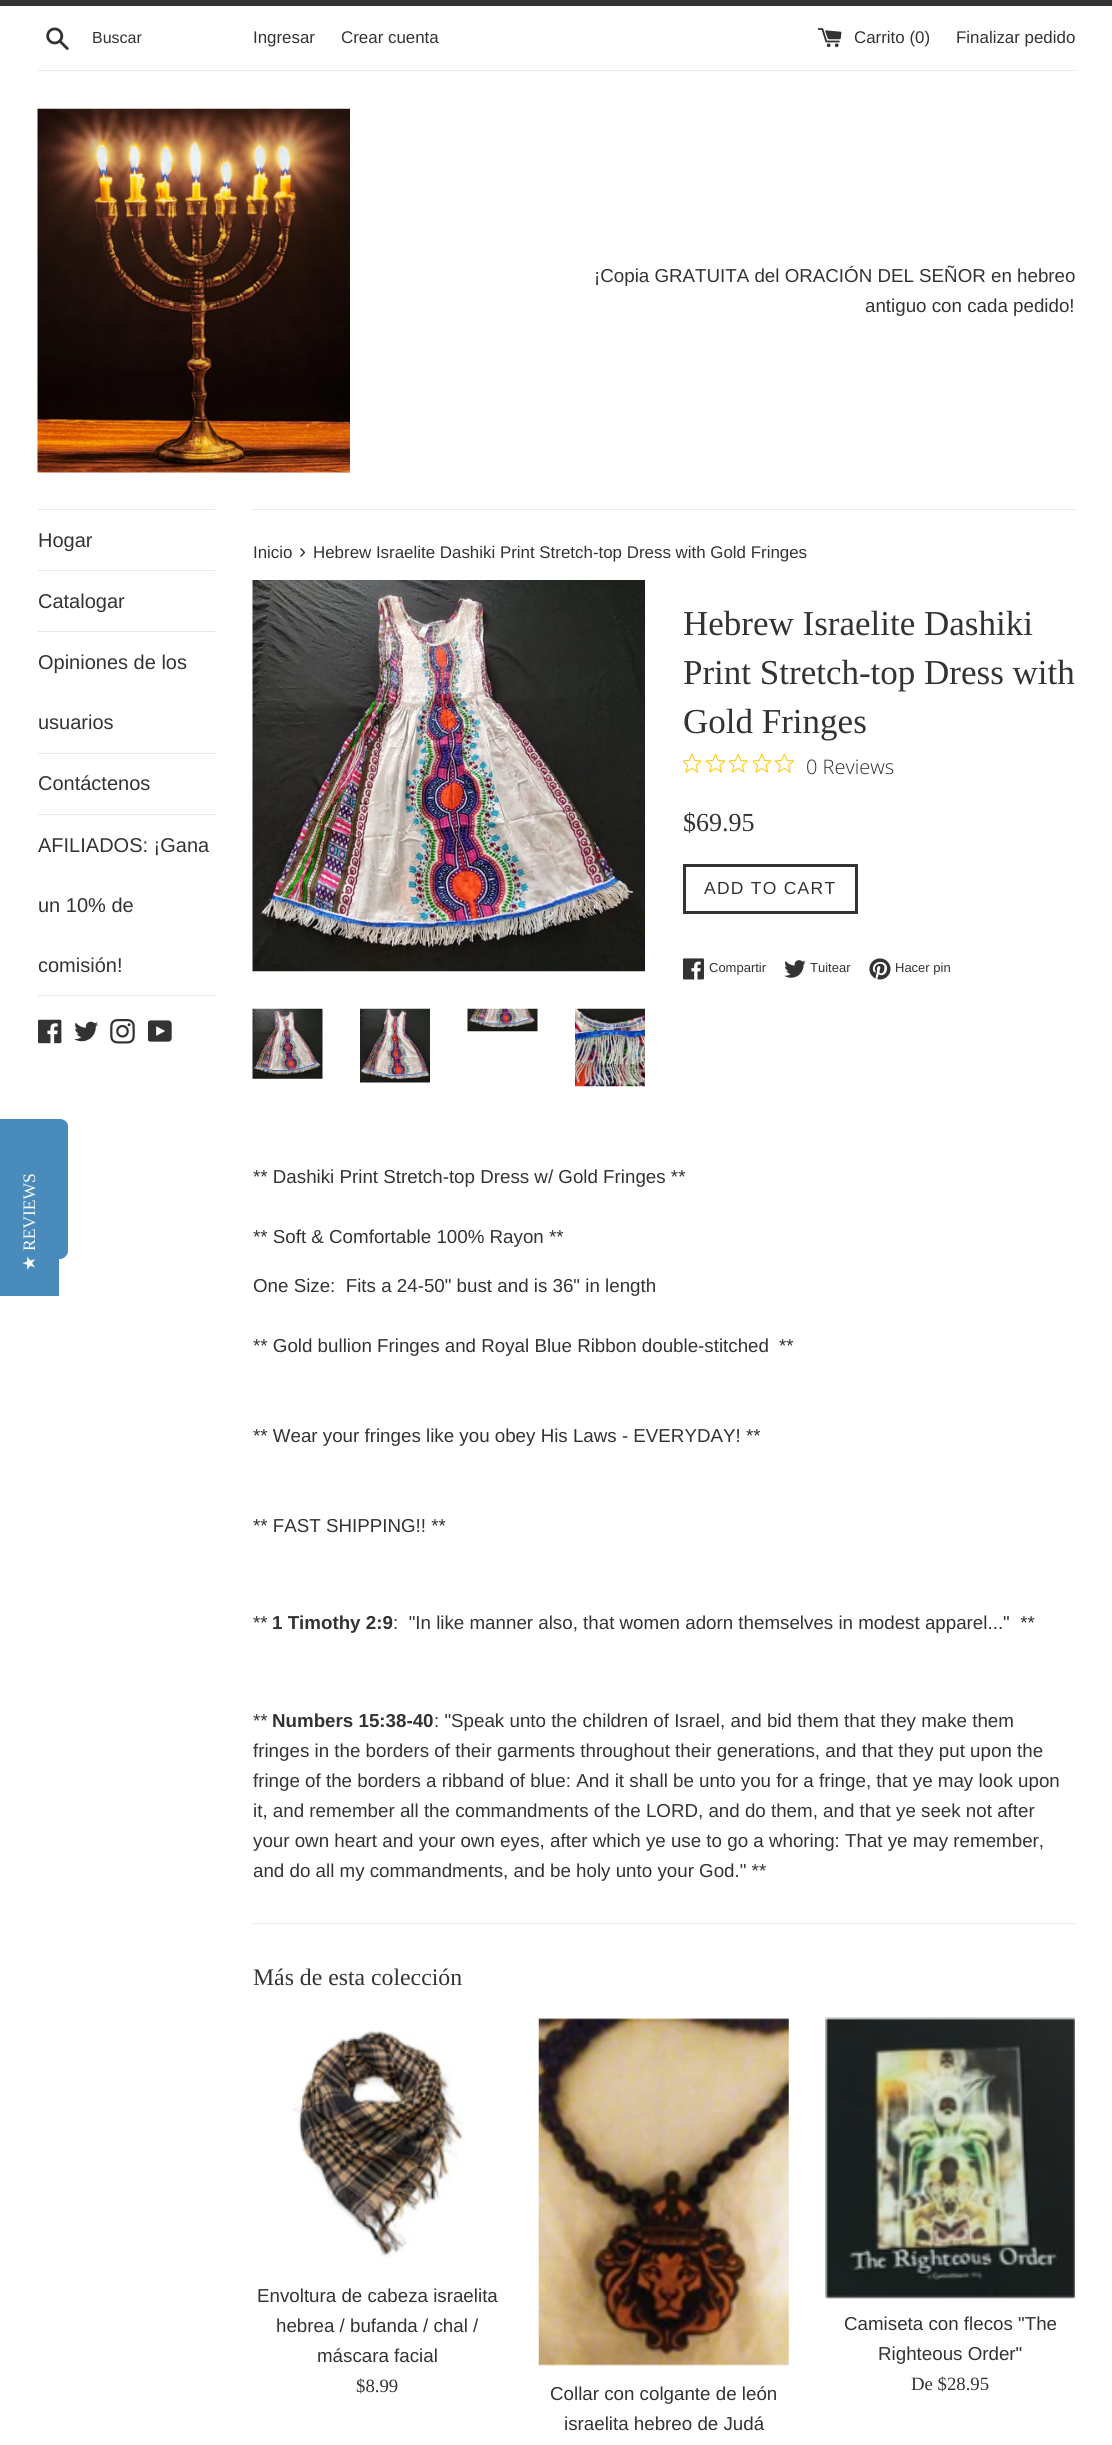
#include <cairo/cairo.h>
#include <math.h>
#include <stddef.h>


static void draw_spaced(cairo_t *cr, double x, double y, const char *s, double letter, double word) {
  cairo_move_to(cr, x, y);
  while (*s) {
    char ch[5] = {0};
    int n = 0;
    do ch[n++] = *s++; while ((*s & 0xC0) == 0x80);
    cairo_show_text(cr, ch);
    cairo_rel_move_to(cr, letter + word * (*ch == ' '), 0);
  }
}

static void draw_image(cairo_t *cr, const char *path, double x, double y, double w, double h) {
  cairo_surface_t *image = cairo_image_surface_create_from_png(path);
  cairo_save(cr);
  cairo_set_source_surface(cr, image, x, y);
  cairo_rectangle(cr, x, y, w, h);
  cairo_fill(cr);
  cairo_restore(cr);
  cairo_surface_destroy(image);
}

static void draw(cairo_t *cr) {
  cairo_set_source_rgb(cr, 1, 1, 1);
  cairo_paint(cr);
  cairo_set_source_rgb(cr, 51 / 255.0, 51 / 255.0, 51 / 255.0);
  cairo_rectangle(cr, 0, 0, 1112, 6);
  cairo_fill(cr);
  draw_image(cr, "images/1.png", 46, 27, 23, 23);
  draw_image(cr, "images/2.png", 818, 28, 24, 20);
  cairo_set_source_rgb(cr, 232 / 255.0, 232 / 255.0, 232 / 255.0);
  cairo_rectangle(cr, 38, 70, 1037, 1);
  cairo_fill(cr);
  draw_image(cr, "images/3.png", 37, 108, 313, 365);
  cairo_set_source_rgb(cr, 73 / 255.0, 140 / 255.0, 188 / 255.0);
  cairo_new_path(cr);
  cairo_move_to(cr, 0, 1259);
  cairo_line_to(cr, 0, 1119);
  cairo_line_to(cr, 60, 1119);
  cairo_curve_to(cr, 64, 1119, 68, 1122, 68, 1126);
  cairo_line_to(cr, 68, 1251);
  cairo_curve_to(cr, 68, 1255, 64, 1259, 60, 1259);
  cairo_close_path(cr);
  cairo_fill(cr);
  cairo_set_source_rgb(cr, 232 / 255.0, 232 / 255.0, 232 / 255.0);
  cairo_rectangle(cr, 38, 509, 177, 1);
  cairo_fill(cr);
  cairo_rectangle(cr, 38, 570, 177, 1);
  cairo_fill(cr);
  cairo_rectangle(cr, 38, 631, 177, 1);
  cairo_fill(cr);
  cairo_rectangle(cr, 38, 753, 177, 1);
  cairo_fill(cr);
  cairo_rectangle(cr, 38, 814, 177, 1);
  cairo_fill(cr);
  cairo_rectangle(cr, 38, 995, 177, 1);
  cairo_fill(cr);
  draw_image(cr, "images/4.png", 38, 1019, 24, 25);
  draw_image(cr, "images/5.png", 74, 1021, 24, 21);
  draw_image(cr, "images/6.png", 110, 1019, 25, 25);
  draw_image(cr, "images/7.png", 148, 1020, 24, 22);
  cairo_rectangle(cr, 253, 509, 822, 1);
  cairo_fill(cr);
  draw_image(cr, "images/8.png", 252, 580, 393, 392);
  draw_image(cr, "images/9.png", 252, 1008, 71, 71);
  draw_image(cr, "images/10.png", 360, 1008, 70, 75);
  draw_image(cr, "images/11.png", 467, 1008, 71, 24);
  draw_image(cr, "images/12.png", 575, 1008, 70, 79);
  draw_image(cr, "images/13.png", 683, 754, 18, 19);
  draw_image(cr, "images/14.png", 706, 754, 19, 19);
  draw_image(cr, "images/15.png", 729, 754, 19, 19);
  draw_image(cr, "images/13.png", 753, 754, 18, 19);
  draw_image(cr, "images/16.png", 775, 754, 19, 19);
  cairo_rectangle(cr, 684.5, 865.5, 172, 47);
  cairo_set_source_rgb(cr, 51 / 255.0, 51 / 255.0, 51 / 255.0);
  cairo_set_line_width(cr, 3);
  cairo_stroke(cr);
  draw_image(cr, "images/17.png", 683, 958, 21, 22);
  draw_image(cr, "images/18.png", 784, 960, 22, 18);
  draw_image(cr, "images/19.png", 869, 958, 22, 22);
  cairo_set_source_rgb(cr, 232 / 255.0, 232 / 255.0, 232 / 255.0);
  cairo_rectangle(cr, 253, 1923, 822, 1);
  cairo_fill(cr);
  draw_image(cr, "images/20.png", 292, 2030, 172, 228);
  draw_image(cr, "images/21.png", 825, 2017, 250, 282);
  draw_image(cr, "images/22.png", 538, 2018, 251, 348);
  cairo_set_source_rgb(cr, 73 / 255.0, 140 / 255.0, 188 / 255.0);
  cairo_rectangle(cr, 0, 1259, 59, 37);
  cairo_fill(cr);
  cairo_select_font_face(cr, "Liberation Sans", CAIRO_FONT_SLANT_NORMAL, CAIRO_FONT_WEIGHT_NORMAL);
  cairo_set_font_size(cr, 16);
  cairo_set_source_rgb(cr, 51 / 255.0, 51 / 255.0, 51 / 255.0);
  cairo_move_to(cr, 92, 43);
  cairo_show_text(cr, "Buscar");
  cairo_set_font_size(cr, 16.9);
  cairo_move_to(cr, 253, 43);
  cairo_show_text(cr, "Ingresar");
  cairo_move_to(cr, 341, 43);
  cairo_show_text(cr, "Crear cuenta");
  cairo_move_to(cr, 854, 43);
  cairo_show_text(cr, "Carrito (0)");
  cairo_move_to(cr, 956, 43);
  cairo_show_text(cr, "Finalizar pedido");
  cairo_set_font_size(cr, 18.75);
  cairo_move_to(cr, 594, 282);
  cairo_show_text(cr, "¡Copia GRATUITA del ORACIÓN DEL SEÑOR en hebreo");
  cairo_move_to(cr, 865, 312);
  cairo_show_text(cr, "antiguo con cada pedido!");
  cairo_set_font_size(cr, 20);
  cairo_move_to(cr, 38, 547);
  cairo_show_text(cr, "Hogar");
  cairo_move_to(cr, 38, 608);
  cairo_show_text(cr, "Catalogar");
  cairo_move_to(cr, 38, 669);
  cairo_show_text(cr, "Opiniones de los");
  cairo_move_to(cr, 38, 729);
  cairo_show_text(cr, "usuarios");
  cairo_move_to(cr, 38, 790);
  cairo_show_text(cr, "Contáctenos");
  cairo_move_to(cr, 38, 852);
  cairo_show_text(cr, "AFILIADOS: ¡Gana");
  cairo_move_to(cr, 38, 912);
  cairo_show_text(cr, "un 10% de");
  cairo_move_to(cr, 38, 972);
  cairo_show_text(cr, "comisión!");
  cairo_set_font_size(cr, 16.9);
  cairo_move_to(cr, 253, 558);
  cairo_show_text(cr, "Inicio");
  cairo_set_font_size(cr, 21);
  cairo_move_to(cr, 299, 558);
  cairo_show_text(cr, "›");
  cairo_set_font_size(cr, 16.9);
  cairo_move_to(cr, 313, 558);
  cairo_show_text(cr, "Hebrew Israelite Dashiki Print Stretch-top Dress with Gold Fringes");
  cairo_select_font_face(cr, "Liberation Serif", CAIRO_FONT_SLANT_NORMAL, CAIRO_FONT_WEIGHT_NORMAL);
  cairo_set_font_size(cr, 35);
  cairo_move_to(cr, 683, 635);
  cairo_show_text(cr, "Hebrew Israelite Dashiki");
  cairo_move_to(cr, 683, 684);
  cairo_show_text(cr, "Print Stretch-top Dress with");
  cairo_move_to(cr, 683, 733);
  cairo_show_text(cr, "Gold Fringes");
  cairo_select_font_face(cr, "Open Sans Light", CAIRO_FONT_SLANT_NORMAL, CAIRO_FONT_WEIGHT_NORMAL);
  cairo_set_font_size(cr, 20);
  cairo_set_source_rgb(cr, 44 / 255.0, 44 / 255.0, 44 / 255.0);
  cairo_move_to(cr, 806, 774);
  cairo_show_text(cr, "0 Reviews");
  cairo_select_font_face(cr, "Liberation Serif", CAIRO_FONT_SLANT_NORMAL, CAIRO_FONT_WEIGHT_NORMAL);
  cairo_set_font_size(cr, 26);
  cairo_set_source_rgb(cr, 51 / 255.0, 51 / 255.0, 51 / 255.0);
  cairo_move_to(cr, 683, 831);
  cairo_show_text(cr, "$69.95");
  cairo_select_font_face(cr, "Liberation Sans", CAIRO_FONT_SLANT_NORMAL, CAIRO_FONT_WEIGHT_NORMAL);
  cairo_set_font_size(cr, 17.5);
  draw_spaced(cr, 704, 894, "ADD TO CART", 1.25, 0);
  cairo_set_font_size(cr, 13);
  cairo_move_to(cr, 709, 972);
  cairo_show_text(cr, "Compartir");
  cairo_move_to(cr, 810, 972);
  cairo_show_text(cr, "Tuitear");
  cairo_move_to(cr, 895, 972);
  cairo_show_text(cr, "Hacer pin");
  cairo_set_font_size(cr, 18.75);
  cairo_move_to(cr, 253, 1183);
  cairo_show_text(cr, "** Dashiki Print Stretch-top Dress w/ Gold Fringes **");
  cairo_move_to(cr, 253, 1243);
  cairo_show_text(cr, "** Soft & Comfortable 100% Rayon **");
  cairo_move_to(cr, 253, 1292);
  cairo_show_text(cr, "One Size:  Fits a 24-50\" bust and is 36\" in length");
  cairo_move_to(cr, 253, 1352);
  cairo_show_text(cr, "** Gold bullion Fringes and Royal Blue Ribbon double-stitched");
  cairo_move_to(cr, 779, 1352);
  cairo_show_text(cr, "**");
  cairo_move_to(cr, 253, 1442);
  cairo_show_text(cr, "** Wear your fringes like you obey His Laws - EVERYDAY! **");
  cairo_move_to(cr, 253, 1532);
  cairo_show_text(cr, "** FAST SHIPPING!! **");
  cairo_move_to(cr, 253, 1629);
  cairo_show_text(cr, "**");
  cairo_select_font_face(cr, "Liberation Sans", CAIRO_FONT_SLANT_NORMAL, CAIRO_FONT_WEIGHT_BOLD);
  cairo_move_to(cr, 272, 1629);
  cairo_show_text(cr, "1 Timothy 2:9");
  cairo_select_font_face(cr, "Liberation Sans", CAIRO_FONT_SLANT_NORMAL, CAIRO_FONT_WEIGHT_NORMAL);
  cairo_move_to(cr, 393, 1629);
  cairo_show_text(cr, ":  \"In like manner also, that women adorn themselves in modest apparel...\"  **");
  cairo_move_to(cr, 253, 1727);
  cairo_show_text(cr, "**");
  cairo_select_font_face(cr, "Liberation Sans", CAIRO_FONT_SLANT_NORMAL, CAIRO_FONT_WEIGHT_BOLD);
  cairo_move_to(cr, 272, 1727);
  cairo_show_text(cr, "Numbers 15:38-40");
  cairo_select_font_face(cr, "Liberation Sans", CAIRO_FONT_SLANT_NORMAL, CAIRO_FONT_WEIGHT_NORMAL);
  cairo_move_to(cr, 434, 1727);
  cairo_show_text(cr, ": \"Speak unto the children of Israel, and bid them that they make them");
  cairo_move_to(cr, 253, 1757);
  cairo_show_text(cr, "fringes in the borders of their garments throughout their generations, and that they put upon the");
  cairo_move_to(cr, 253, 1787);
  cairo_show_text(cr, "fringe of the borders a ribband of blue: And it shall be unto you for a fringe, that ye may look upon");
  cairo_move_to(cr, 253, 1817);
  cairo_show_text(cr, "it, and remember all the commandments of the LORD, and do them, and that ye seek not after");
  cairo_move_to(cr, 253, 1847);
  cairo_show_text(cr, "your own heart and your own eyes, after which ye use to go a whoring: That ye may remember,");
  cairo_move_to(cr, 253, 1877);
  cairo_show_text(cr, "and do all my commandments, and be holy unto your God.\" **");
  cairo_select_font_face(cr, "Liberation Serif", CAIRO_FONT_SLANT_NORMAL, CAIRO_FONT_WEIGHT_NORMAL);
  cairo_set_font_size(cr, 23.75);
  cairo_move_to(cr, 253, 1985);
  cairo_show_text(cr, "Más de esta colección");
  cairo_select_font_face(cr, "Liberation Sans", CAIRO_FONT_SLANT_NORMAL, CAIRO_FONT_WEIGHT_NORMAL);
  cairo_set_font_size(cr, 18.75);
  cairo_move_to(cr, 257, 2302);
  cairo_show_text(cr, "Envoltura de cabeza israelita");
  cairo_move_to(cr, 276, 2332);
  cairo_show_text(cr, "hebrea / bufanda / chal /");
  cairo_move_to(cr, 317, 2362);
  cairo_show_text(cr, "máscara facial");
  cairo_select_font_face(cr, "Liberation Serif", CAIRO_FONT_SLANT_NORMAL, CAIRO_FONT_WEIGHT_NORMAL);
  cairo_move_to(cr, 356, 2392);
  cairo_show_text(cr, "$8.99");
  cairo_select_font_face(cr, "Liberation Sans", CAIRO_FONT_SLANT_NORMAL, CAIRO_FONT_WEIGHT_NORMAL);
  cairo_move_to(cr, 844, 2330);
  cairo_show_text(cr, "Camiseta con flecos \"The");
  cairo_move_to(cr, 878, 2360);
  cairo_show_text(cr, "Righteous Order\"");
  cairo_select_font_face(cr, "Liberation Serif", CAIRO_FONT_SLANT_NORMAL, CAIRO_FONT_WEIGHT_NORMAL);
  cairo_move_to(cr, 911, 2390);
  cairo_show_text(cr, "De $28.95");
  cairo_select_font_face(cr, "Liberation Sans", CAIRO_FONT_SLANT_NORMAL, CAIRO_FONT_WEIGHT_NORMAL);
  cairo_move_to(cr, 550, 2400);
  cairo_show_text(cr, "Collar con colgante de león");
  cairo_move_to(cr, 564, 2430);
  cairo_show_text(cr, "israelita hebreo de Judá");
  cairo_select_font_face(cr, "Liberation Serif", CAIRO_FONT_SLANT_NORMAL, CAIRO_FONT_WEIGHT_NORMAL);
  cairo_set_font_size(cr, 17.5);
  cairo_set_source_rgb(cr, 250 / 255.0, 250 / 255.0, 250 / 255.0);
  cairo_save(cr);
  cairo_translate(cr, 35, 1251);
  cairo_rotate(cr, -90 * M_PI / 180);
  cairo_move_to(cr, 0, 0);
  cairo_show_text(cr, "REVIEWS");
  cairo_restore(cr);
  cairo_select_font_face(cr, "DejaVu Sans", CAIRO_FONT_SLANT_NORMAL, CAIRO_FONT_WEIGHT_NORMAL);
  cairo_save(cr);
  cairo_translate(cr, 35, 1271);
  cairo_rotate(cr, -90 * M_PI / 180);
  cairo_move_to(cr, 0, 0);
  cairo_show_text(cr, "★");
  cairo_restore(cr);
}

int main(void) {
  cairo_surface_t *surface = cairo_image_surface_create(CAIRO_FORMAT_RGB24, 1112, 2445);
  cairo_t *cr = cairo_create(surface);
  cairo_font_options_t *options = cairo_font_options_create();
  cairo_font_options_set_hint_metrics(options, CAIRO_HINT_METRICS_OFF);
  cairo_font_options_set_hint_style(options, CAIRO_HINT_STYLE_NONE);
  cairo_set_font_options(cr, options);
  cairo_set_miter_limit(cr, 4);
  draw(cr);
  cairo_surface_write_to_png(surface, "out.png");
  cairo_font_options_destroy(options);
  cairo_destroy(cr);
  cairo_surface_destroy(surface);
  return 0;
}
